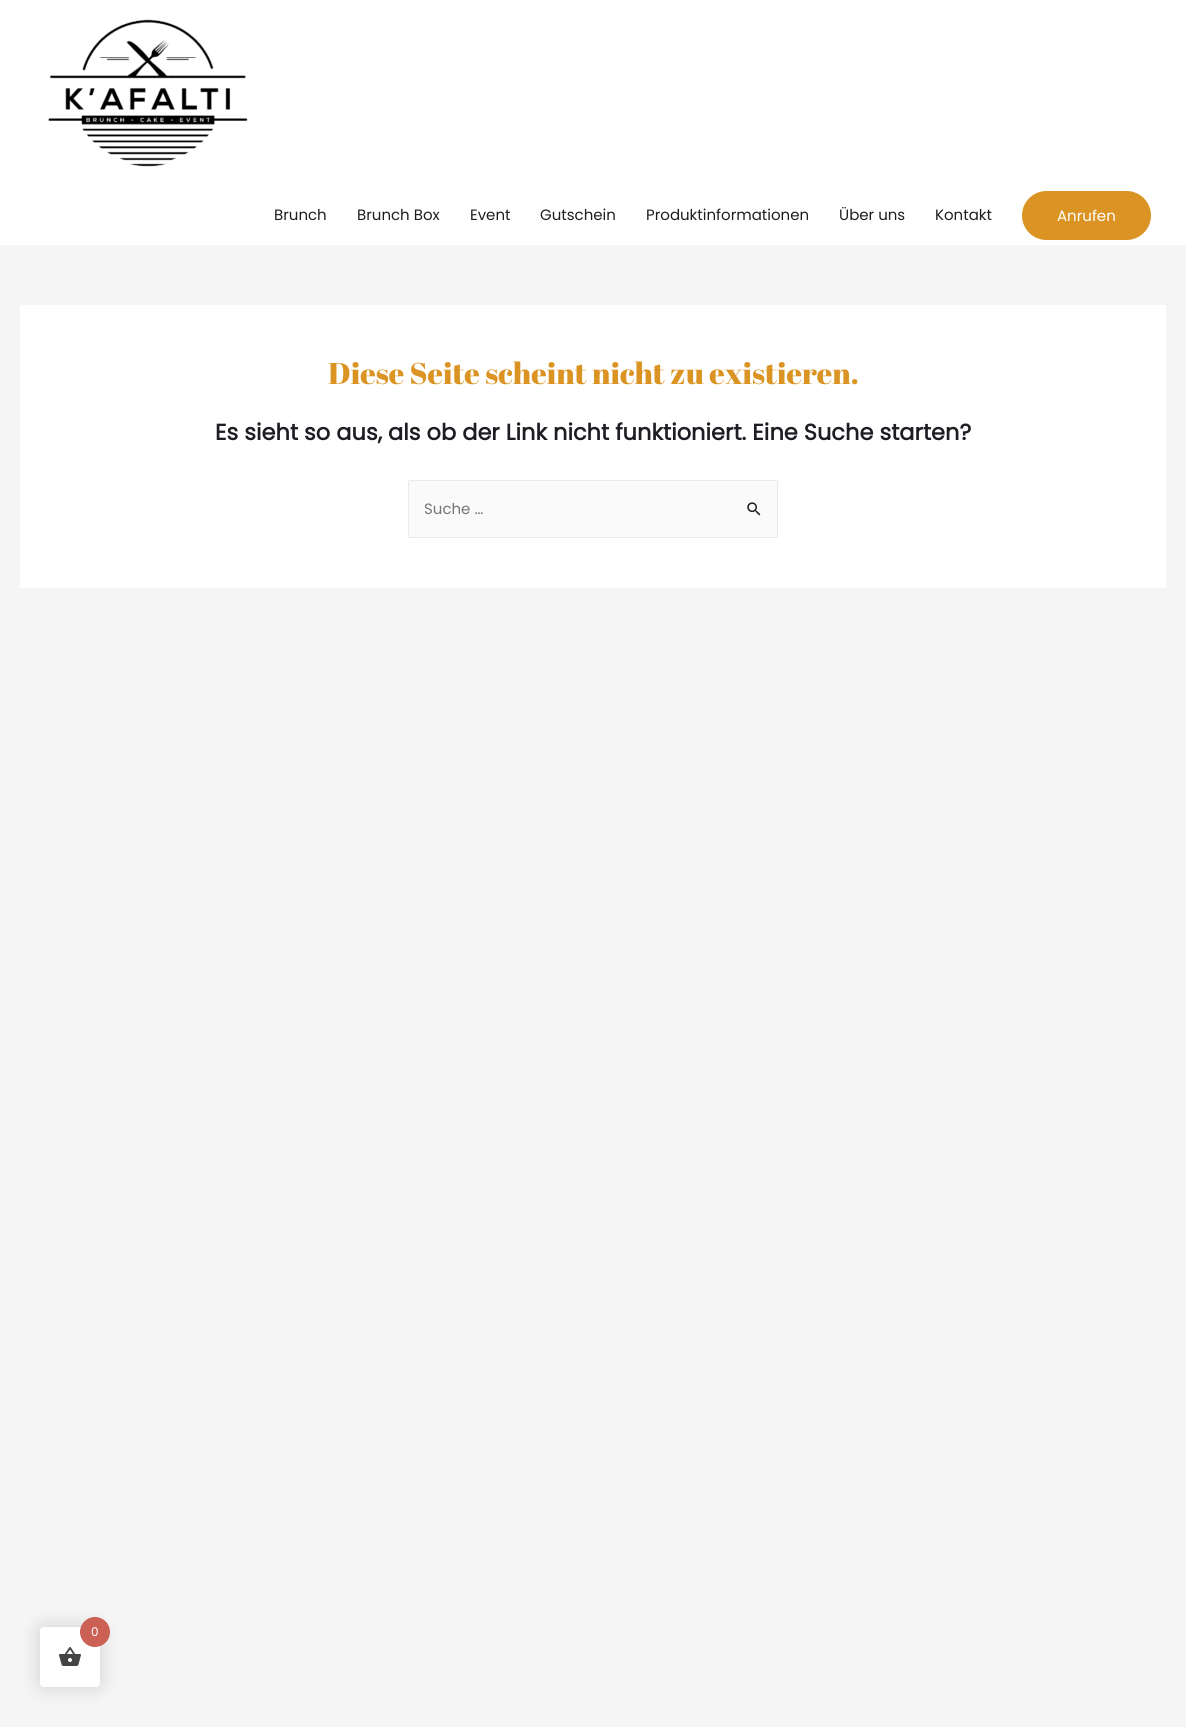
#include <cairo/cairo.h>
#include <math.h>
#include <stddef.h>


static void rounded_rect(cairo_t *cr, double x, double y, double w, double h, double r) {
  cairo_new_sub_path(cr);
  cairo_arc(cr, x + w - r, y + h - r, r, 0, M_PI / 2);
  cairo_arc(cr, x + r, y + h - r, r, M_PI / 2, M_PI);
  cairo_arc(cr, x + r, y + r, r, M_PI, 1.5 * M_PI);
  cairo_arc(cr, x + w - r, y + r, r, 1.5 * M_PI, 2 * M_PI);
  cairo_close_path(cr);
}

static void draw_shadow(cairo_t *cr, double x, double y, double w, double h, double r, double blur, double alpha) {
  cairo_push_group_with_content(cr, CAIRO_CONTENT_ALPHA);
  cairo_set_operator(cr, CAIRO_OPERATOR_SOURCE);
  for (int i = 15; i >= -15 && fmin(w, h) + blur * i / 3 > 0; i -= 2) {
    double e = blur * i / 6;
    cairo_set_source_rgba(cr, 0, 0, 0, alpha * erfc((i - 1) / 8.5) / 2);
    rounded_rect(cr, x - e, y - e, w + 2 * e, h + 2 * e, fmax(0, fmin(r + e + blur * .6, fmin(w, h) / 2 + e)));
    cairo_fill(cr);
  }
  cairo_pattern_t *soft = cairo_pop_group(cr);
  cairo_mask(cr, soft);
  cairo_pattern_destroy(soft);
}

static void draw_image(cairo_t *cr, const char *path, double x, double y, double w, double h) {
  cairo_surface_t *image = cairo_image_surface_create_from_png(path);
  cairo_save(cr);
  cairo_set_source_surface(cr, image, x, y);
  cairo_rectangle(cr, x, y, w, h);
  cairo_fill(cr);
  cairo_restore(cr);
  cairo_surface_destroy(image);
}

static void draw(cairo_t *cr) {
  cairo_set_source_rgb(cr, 245 / 255.0, 245 / 255.0, 245 / 255.0);
  cairo_paint(cr);
  cairo_set_source_rgb(cr, 1, 1, 1);
  cairo_rectangle(cr, 0, 0, 1186, 245);
  cairo_fill(cr);
  draw_image(cr, "images/1.png", 48, 19, 200, 148);
  cairo_set_source_rgb(cr, 219 / 255.0, 148 / 255.0, 35 / 255.0);
  rounded_rect(cr, 1022, 191, 129, 49, 24.5);
  cairo_fill(cr);
  cairo_set_source_rgb(cr, 1, 1, 1);
  cairo_rectangle(cr, 20, 305, 1146, 283);
  cairo_fill(cr);
  cairo_set_source_rgb(cr, 250 / 255.0, 250 / 255.0, 250 / 255.0);
  rounded_rect(cr, 408.5, 480.5, 369, 57, 1.5);
  cairo_fill_preserve(cr);
  cairo_set_source_rgb(cr, 234 / 255.0, 234 / 255.0, 234 / 255.0);
  cairo_set_line_width(cr, 1);
  cairo_stroke(cr);
  draw_image(cr, "images/2.png", 747, 502, 14, 14);
  cairo_set_source_rgb(cr, 0, 0, 0);
  draw_shadow(cr, 40, 1627, 60, 60, 4, 10, 0.15);
  cairo_set_source_rgb(cr, 1, 1, 1);
  rounded_rect(cr, 40, 1627, 60, 60, 4);
  cairo_fill(cr);
  cairo_set_source_rgb(cr, 204 / 255.0, 96 / 255.0, 85 / 255.0);
  cairo_arc(cr, 95, 1632, 15, 0, 2 * M_PI);
  cairo_fill(cr);
  draw_image(cr, "images/3.png", 59, 1647, 22, 19);
  cairo_select_font_face(cr, "Poppins", CAIRO_FONT_SLANT_NORMAL, CAIRO_FONT_WEIGHT_NORMAL);
  cairo_set_font_size(cr, 15);
  cairo_set_source_rgb(cr, 29 / 255.0, 29 / 255.0, 35 / 255.0);
  cairo_move_to(cr, 274, 220);
  cairo_show_text(cr, "Brunch");
  cairo_move_to(cr, 357, 220);
  cairo_show_text(cr, "Brunch Box");
  cairo_move_to(cr, 470, 220);
  cairo_show_text(cr, "Event");
  cairo_move_to(cr, 540, 220);
  cairo_show_text(cr, "Gutschein");
  cairo_move_to(cr, 646, 220);
  cairo_show_text(cr, "Produktinformationen");
  cairo_move_to(cr, 839, 220);
  cairo_show_text(cr, "Über uns");
  cairo_move_to(cr, 935, 220);
  cairo_show_text(cr, "Kontakt");
  cairo_set_source_rgb(cr, 1, 1, 1);
  cairo_move_to(cr, 1057, 221);
  cairo_show_text(cr, "Anrufen");
  cairo_select_font_face(cr, "Abril Fatface", CAIRO_FONT_SLANT_NORMAL, CAIRO_FONT_WEIGHT_NORMAL);
  cairo_set_font_size(cr, 30);
  cairo_set_source_rgb(cr, 219 / 255.0, 148 / 255.0, 35 / 255.0);
  cairo_move_to(cr, 328, 384);
  cairo_show_text(cr, "Diese Seite scheint nicht zu existieren.");
  cairo_select_font_face(cr, "Poppins", CAIRO_FONT_SLANT_NORMAL, CAIRO_FONT_WEIGHT_BOLD);
  cairo_set_font_size(cr, 22.5);
  cairo_set_source_rgb(cr, 29 / 255.0, 29 / 255.0, 35 / 255.0);
  cairo_move_to(cr, 215, 440);
  cairo_show_text(cr, "Es sieht so aus, als ob der Link nicht funktioniert. Eine Suche starten?");
  cairo_select_font_face(cr, "Poppins", CAIRO_FONT_SLANT_NORMAL, CAIRO_FONT_WEIGHT_NORMAL);
  cairo_set_font_size(cr, 15);
  cairo_set_source_rgb(cr, 117 / 255.0, 117 / 255.0, 117 / 255.0);
  cairo_move_to(cr, 424, 514);
  cairo_show_text(cr, "Suche …");
  cairo_set_font_size(cr, 12);
  cairo_set_source_rgb(cr, 1, 1, 1);
  cairo_move_to(cr, 91, 1636);
  cairo_show_text(cr, "0");
}

int main(void) {
  cairo_surface_t *surface = cairo_image_surface_create(CAIRO_FORMAT_RGB24, 1186, 1727);
  cairo_t *cr = cairo_create(surface);
  cairo_font_options_t *options = cairo_font_options_create();
  cairo_font_options_set_hint_metrics(options, CAIRO_HINT_METRICS_OFF);
  cairo_font_options_set_hint_style(options, CAIRO_HINT_STYLE_NONE);
  cairo_set_font_options(cr, options);
  cairo_set_miter_limit(cr, 4);
  draw(cr);
  cairo_surface_write_to_png(surface, "out.png");
  cairo_font_options_destroy(options);
  cairo_destroy(cr);
  cairo_surface_destroy(surface);
  return 0;
}
